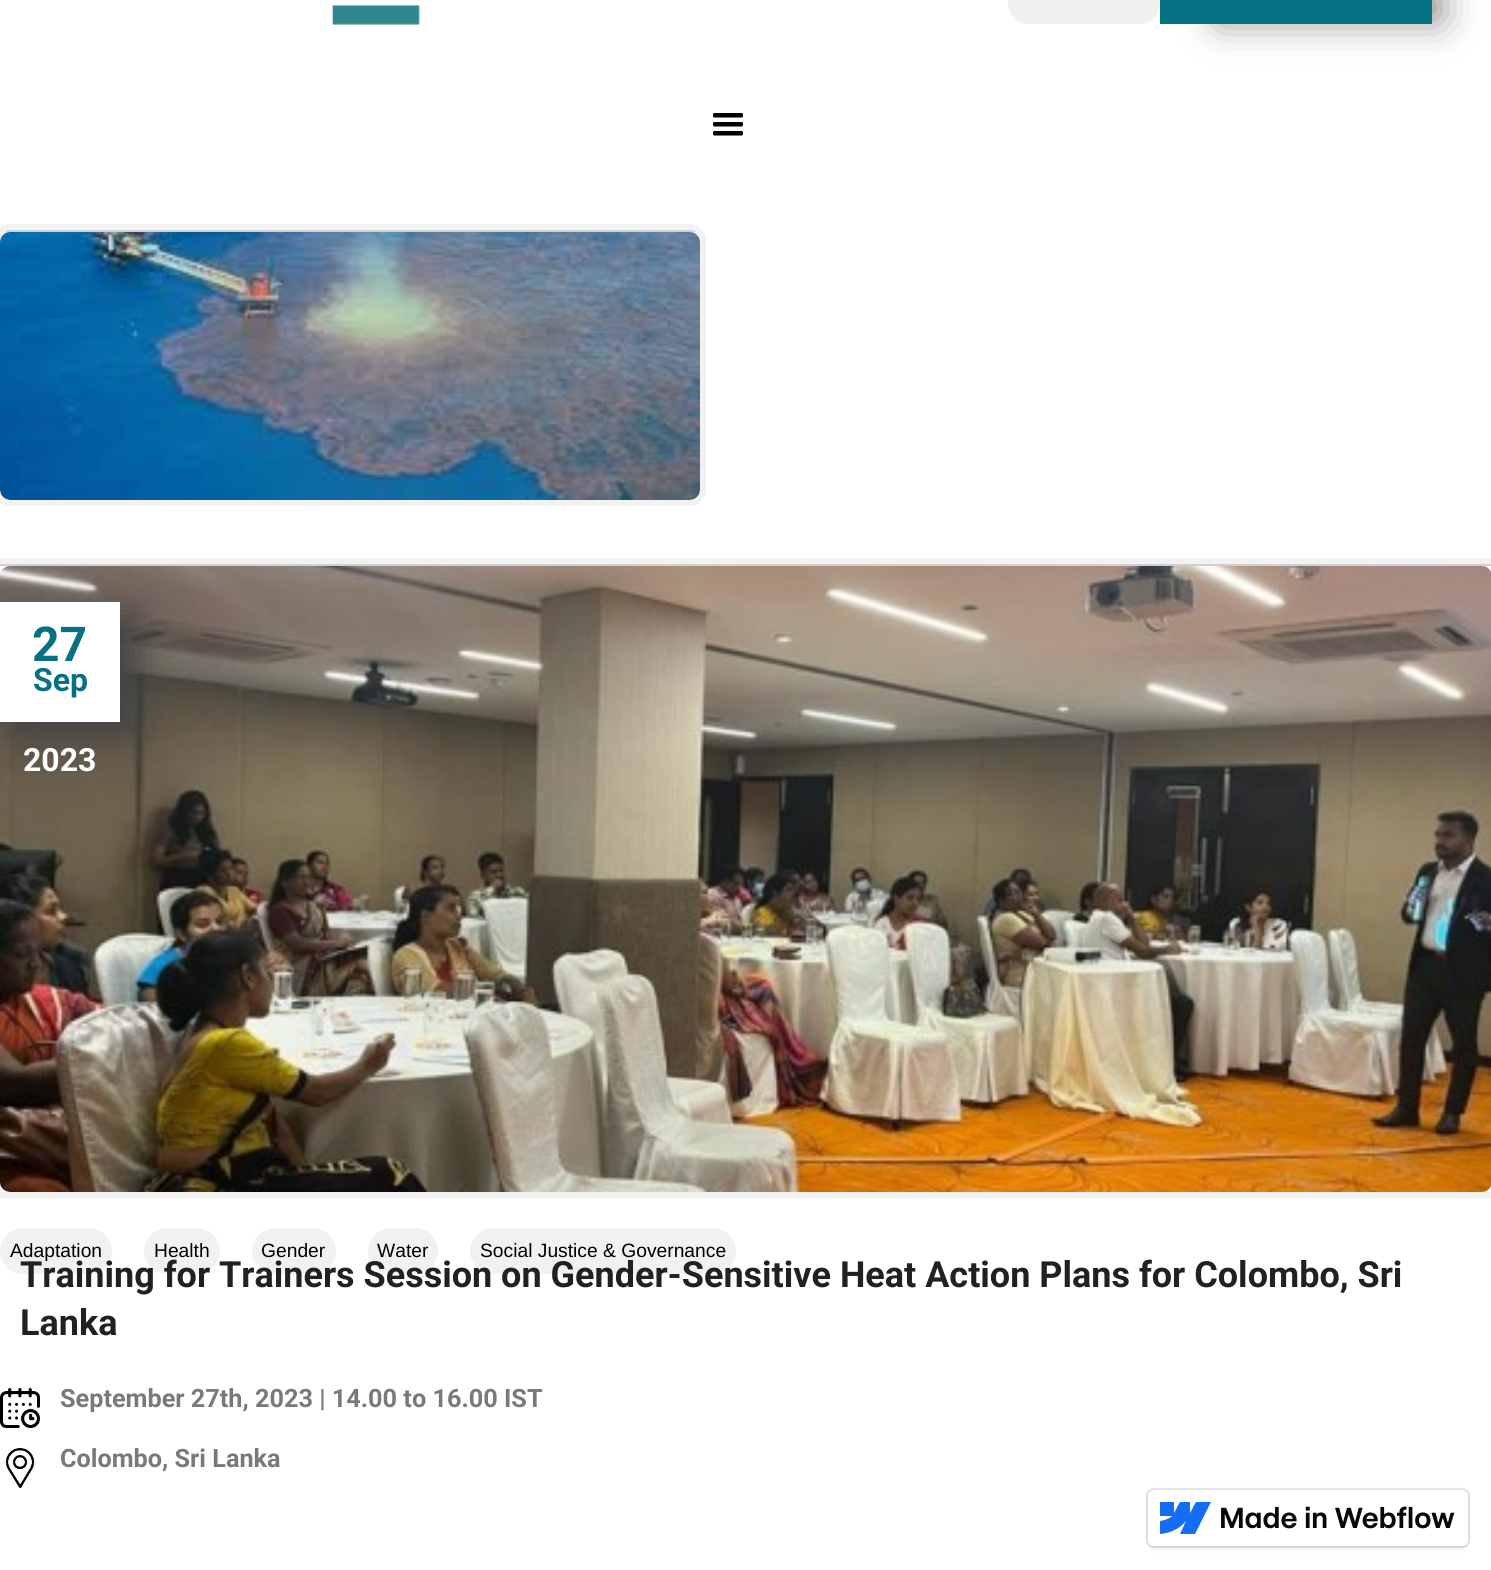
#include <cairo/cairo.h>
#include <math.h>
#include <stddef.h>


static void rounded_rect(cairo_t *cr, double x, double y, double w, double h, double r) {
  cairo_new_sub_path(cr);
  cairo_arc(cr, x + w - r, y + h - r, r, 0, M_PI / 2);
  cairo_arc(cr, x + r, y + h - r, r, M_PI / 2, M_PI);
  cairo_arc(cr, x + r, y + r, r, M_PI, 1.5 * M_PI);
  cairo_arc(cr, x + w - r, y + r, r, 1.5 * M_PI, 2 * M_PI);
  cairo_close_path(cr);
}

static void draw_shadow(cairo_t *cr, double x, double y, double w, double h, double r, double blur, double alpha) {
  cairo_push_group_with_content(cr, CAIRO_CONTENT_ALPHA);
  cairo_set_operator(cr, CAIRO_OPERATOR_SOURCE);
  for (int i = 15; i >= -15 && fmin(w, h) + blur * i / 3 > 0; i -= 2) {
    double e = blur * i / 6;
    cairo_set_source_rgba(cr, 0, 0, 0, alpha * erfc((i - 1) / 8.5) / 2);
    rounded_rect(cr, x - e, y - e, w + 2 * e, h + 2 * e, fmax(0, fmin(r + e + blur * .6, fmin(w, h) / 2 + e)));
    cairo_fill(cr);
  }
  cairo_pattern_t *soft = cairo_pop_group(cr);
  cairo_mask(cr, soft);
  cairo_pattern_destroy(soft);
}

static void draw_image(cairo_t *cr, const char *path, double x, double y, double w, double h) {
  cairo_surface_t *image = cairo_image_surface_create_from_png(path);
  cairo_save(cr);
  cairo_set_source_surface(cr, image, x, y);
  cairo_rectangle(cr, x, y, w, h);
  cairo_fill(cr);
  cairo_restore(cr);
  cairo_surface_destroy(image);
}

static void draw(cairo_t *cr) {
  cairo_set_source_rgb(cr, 1, 1, 1);
  cairo_paint(cr);
  draw_image(cr, "images/1.png", 331, 4, 89, 21);
  cairo_set_source_rgb(cr, 141 / 255.0, 135 / 255.0, 135 / 255.0);
  draw_shadow(cr, 1220, -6, 220, 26, 0, 20, 1);
  cairo_set_source_rgb(cr, 240 / 255.0, 240 / 255.0, 240 / 255.0);
  rounded_rect(cr, 1008, -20, 152, 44, 20);
  cairo_fill(cr);
  cairo_set_source_rgb(cr, 6 / 255.0, 113 / 255.0, 130 / 255.0);
  cairo_rectangle(cr, 1160, 0, 272, 24);
  cairo_fill(cr);
  draw_image(cr, "images/2.png", 713, 113, 30, 23);
  cairo_set_source_rgb(cr, 208 / 255.0, 208 / 255.0, 208 / 255.0);
  cairo_rectangle(cr, 6, 230, 690, 2);
  cairo_fill(cr);
  cairo_set_source_rgb(cr, 215 / 255.0, 203 / 255.0, 203 / 255.0);
  rounded_rect(cr, 0, 232, 700, 268, 10);
  cairo_fill(cr);
  draw_image(cr, "images/3.png", 0, 232, 700, 268);
  rounded_rect(cr, -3, 227, 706, 276, 13);
  cairo_set_source_rgb(cr, 242 / 255.0, 242 / 255.0, 242 / 255.0);
  cairo_set_line_width(cr, 6);
  cairo_stroke(cr);
  cairo_set_source_rgb(cr, 208 / 255.0, 208 / 255.0, 208 / 255.0);
  cairo_rectangle(cr, 0, 564, 1491, 2);
  cairo_fill(cr);
  cairo_set_source_rgb(cr, 215 / 255.0, 203 / 255.0, 203 / 255.0);
  rounded_rect(cr, 0, 566, 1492, 626, 10);
  cairo_fill(cr);
  draw_image(cr, "images/4.png", 0, 566, 1491, 626);
  cairo_set_source_rgb(cr, 68 / 255.0, 68 / 255.0, 68 / 255.0);
  draw_shadow(cr, 14, 612, 124, 124, 0, 17, 1);
  cairo_set_source_rgb(cr, 1, 1, 1);
  cairo_rectangle(cr, 0, 602, 120, 120);
  cairo_fill(cr);
  cairo_rectangle(cr, -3, 561, 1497, 634);
  cairo_set_source_rgb(cr, 242 / 255.0, 242 / 255.0, 242 / 255.0);
  cairo_stroke(cr);
  draw_image(cr, "images/5.png", 0, 1388, 40, 40);
  draw_image(cr, "images/6.png", 5, 1448, 30, 40);
  cairo_set_source_rgb(cr, 241 / 255.0, 241 / 255.0, 241 / 255.0);
  rounded_rect(cr, 0, 1228, 112, 46, 23);
  cairo_fill(cr);
  rounded_rect(cr, 144, 1228, 76, 46, 23);
  cairo_fill(cr);
  rounded_rect(cr, 252, 1228, 84, 46, 23);
  cairo_fill(cr);
  rounded_rect(cr, 368, 1228, 70, 46, 23);
  cairo_fill(cr);
  rounded_rect(cr, 470, 1228, 266, 46, 23);
  cairo_fill(cr);
  cairo_set_source_rgb(cr, 0, 0, 0);
  draw_shadow(cr, 1148, 1492, 320, 56, 6, 3, 0.1);
  rounded_rect(cr, 1147, 1489, 322, 58, 7);
  cairo_set_source_rgba(cr, 0, 0, 0, 0.1);
  cairo_set_line_width(cr, 2);
  cairo_stroke(cr);
  cairo_set_source_rgb(cr, 1, 1, 1);
  rounded_rect(cr, 1148, 1490, 320, 56, 6);
  cairo_fill(cr);
  cairo_set_source_rgb(cr, 20 / 255.0, 110 / 255.0, 245 / 255.0);
  cairo_set_fill_rule(cr, CAIRO_FILL_RULE_EVEN_ODD);
  cairo_new_path(cr);
  cairo_move_to(cr, 1211, 1502);
  cairo_line_to(cr, 1195, 1534);
  cairo_line_to(cr, 1180, 1534);
  cairo_line_to(cr, 1186, 1521);
  cairo_curve_to(cr, 1180, 1528, 1172, 1533, 1160, 1534);
  cairo_line_to(cr, 1160, 1521);
  cairo_curve_to(cr, 1160, 1521, 1168, 1520, 1172, 1516);
  cairo_line_to(cr, 1160, 1516);
  cairo_line_to(cr, 1160, 1502);
  cairo_line_to(cr, 1174, 1502);
  cairo_line_to(cr, 1174, 1513);
  cairo_line_to(cr, 1180, 1502);
  cairo_line_to(cr, 1190, 1502);
  cairo_line_to(cr, 1190, 1513);
  cairo_line_to(cr, 1196, 1502);
  cairo_close_path(cr);
  cairo_fill(cr);
  draw_image(cr, "images/7.png", 1221, 1506, 234, 23);
  cairo_select_font_face(cr, "Roboto", CAIRO_FONT_SLANT_NORMAL, CAIRO_FONT_WEIGHT_BOLD);
  cairo_set_font_size(cr, 48);
  cairo_set_source_rgb(cr, 6 / 255.0, 113 / 255.0, 130 / 255.0);
  cairo_move_to(cr, 32, 661);
  cairo_show_text(cr, "27");
  cairo_set_font_size(cr, 32);
  cairo_move_to(cr, 33, 691);
  cairo_show_text(cr, "Sep");
  cairo_set_source_rgb(cr, 1, 1, 1);
  cairo_move_to(cr, 23, 771);
  cairo_show_text(cr, "2023");
  cairo_set_font_size(cr, 36);
  cairo_set_source_rgb(cr, 32 / 255.0, 33 / 255.0, 34 / 255.0);
  cairo_move_to(cr, 20, 1287);
  cairo_show_text(cr, "Training for Trainers Session on Gender-Sensitive Heat Action Plans for Colombo, Sri");
  cairo_move_to(cr, 20, 1335);
  cairo_show_text(cr, "Lanka");
  cairo_set_font_size(cr, 25.25);
  cairo_set_source_rgb(cr, 121 / 255.0, 121 / 255.0, 121 / 255.0);
  cairo_move_to(cr, 60, 1407);
  cairo_show_text(cr, "September 27th, 2023 | 14.00 to 16.00 IST");
  cairo_move_to(cr, 60, 1467);
  cairo_show_text(cr, "Colombo, Sri Lanka");
  cairo_select_font_face(cr, "Liberation Sans", CAIRO_FONT_SLANT_NORMAL, CAIRO_FONT_WEIGHT_NORMAL);
  cairo_set_font_size(cr, 19.25);
  cairo_set_source_rgb(cr, 0, 0, 0);
  cairo_move_to(cr, 10, 1257);
  cairo_show_text(cr, "Adaptation");
  cairo_move_to(cr, 154, 1257);
  cairo_show_text(cr, "Health");
  cairo_move_to(cr, 261, 1257);
  cairo_show_text(cr, "Gender");
  cairo_move_to(cr, 377, 1257);
  cairo_show_text(cr, "Water");
  cairo_move_to(cr, 480, 1257);
  cairo_show_text(cr, "Social Justice & Governance");
}

int main(void) {
  cairo_surface_t *surface = cairo_image_surface_create(CAIRO_FORMAT_RGB24, 1491, 1570);
  cairo_t *cr = cairo_create(surface);
  cairo_font_options_t *options = cairo_font_options_create();
  cairo_font_options_set_hint_metrics(options, CAIRO_HINT_METRICS_OFF);
  cairo_font_options_set_hint_style(options, CAIRO_HINT_STYLE_NONE);
  cairo_set_font_options(cr, options);
  cairo_set_miter_limit(cr, 4);
  draw(cr);
  cairo_surface_write_to_png(surface, "out.png");
  cairo_font_options_destroy(options);
  cairo_destroy(cr);
  cairo_surface_destroy(surface);
  return 0;
}
